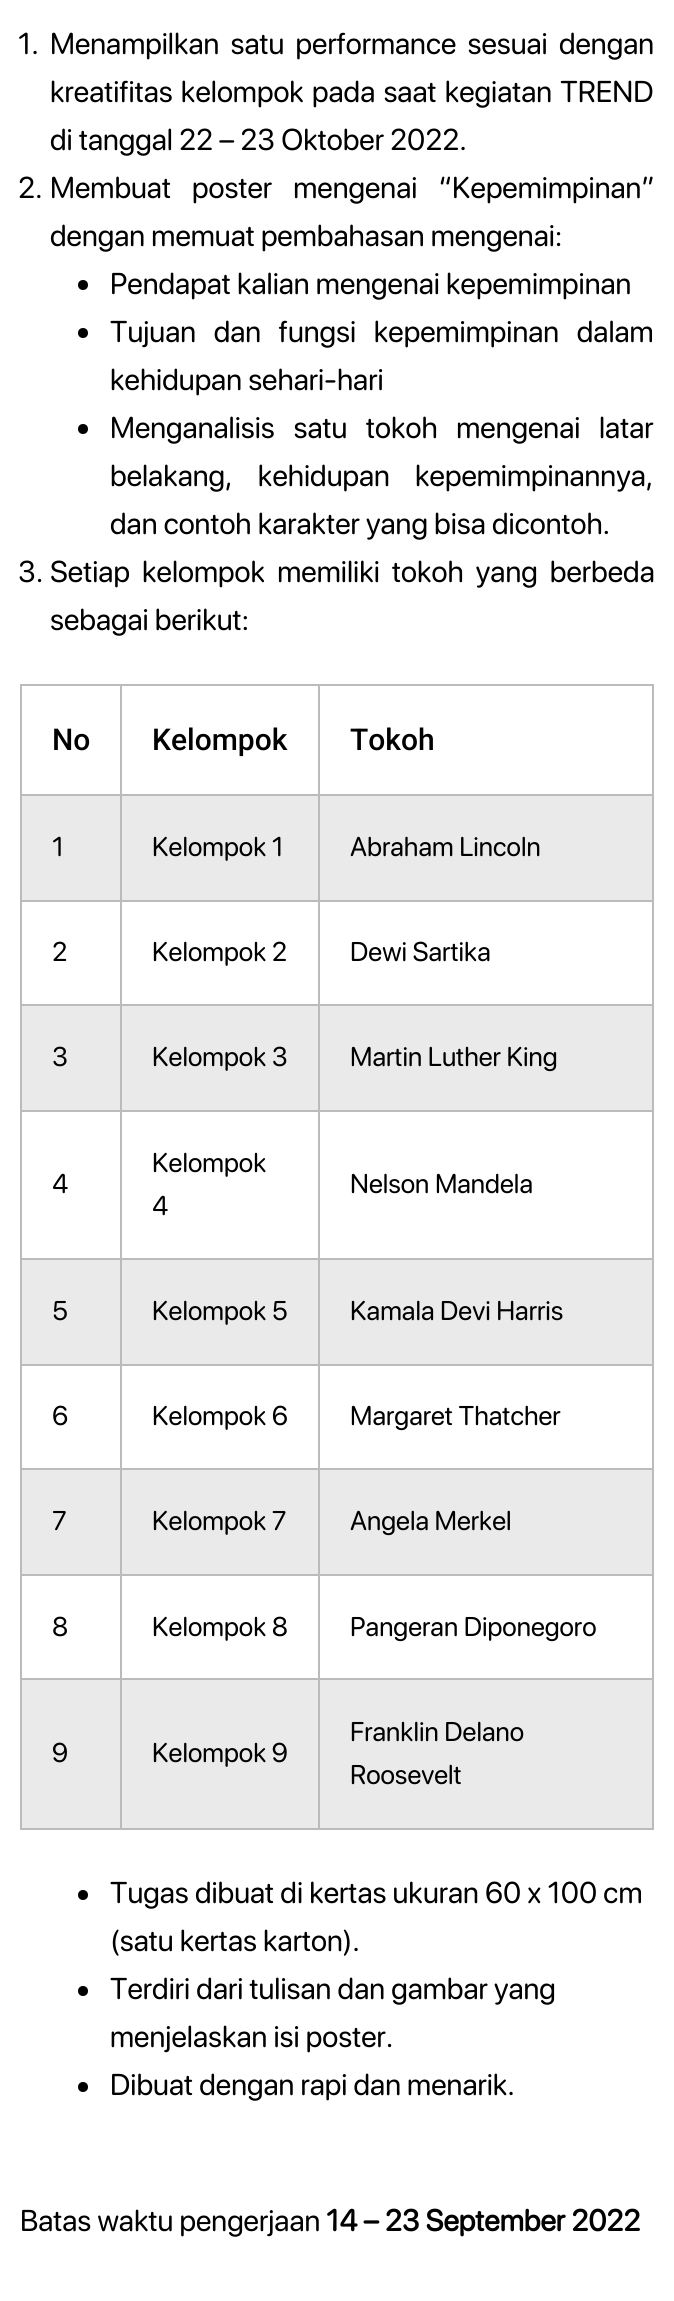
#include <cairo/cairo.h>
#include <math.h>
#include <stddef.h>


static void draw_spaced(cairo_t *cr, double x, double y, const char *s, double letter, double word) {
  cairo_move_to(cr, x, y);
  while (*s) {
    char ch[5] = {0};
    int n = 0;
    do ch[n++] = *s++; while ((*s & 0xC0) == 0x80);
    cairo_show_text(cr, ch);
    cairo_rel_move_to(cr, letter + word * (*ch == ' '), 0);
  }
}

static void draw(cairo_t *cr) {
  cairo_set_source_rgb(cr, 1, 1, 1);
  cairo_paint(cr);
  cairo_set_source_rgb(cr, 0, 0, 0);
  cairo_arc(cr, 83, 285, 5, 0, 2 * M_PI);
  cairo_fill(cr);
  cairo_arc(cr, 83, 333, 5, 0, 2 * M_PI);
  cairo_fill(cr);
  cairo_arc(cr, 83, 429, 5, 0, 2 * M_PI);
  cairo_fill(cr);
  cairo_set_source_rgb(cr, 187 / 255.0, 187 / 255.0, 187 / 255.0);
  cairo_rectangle(cr, 318, 684, 336, 2);
  cairo_fill(cr);
  cairo_rectangle(cr, 318, 794, 336, 2);
  cairo_fill(cr);
  cairo_set_source_rgb(cr, 234 / 255.0, 234 / 255.0, 234 / 255.0);
  cairo_rectangle(cr, 22, 796, 630, 104);
  cairo_fill(cr);
  cairo_set_source_rgb(cr, 187 / 255.0, 187 / 255.0, 187 / 255.0);
  cairo_rectangle(cr, 318, 900, 336, 2);
  cairo_fill(cr);
  cairo_rectangle(cr, 318, 1004, 336, 2);
  cairo_fill(cr);
  cairo_set_source_rgb(cr, 234 / 255.0, 234 / 255.0, 234 / 255.0);
  cairo_rectangle(cr, 22, 1006, 630, 104);
  cairo_fill(cr);
  cairo_set_source_rgb(cr, 187 / 255.0, 187 / 255.0, 187 / 255.0);
  cairo_rectangle(cr, 318, 1110, 336, 2);
  cairo_fill(cr);
  cairo_rectangle(cr, 318, 1258, 336, 2);
  cairo_fill(cr);
  cairo_set_source_rgb(cr, 234 / 255.0, 234 / 255.0, 234 / 255.0);
  cairo_rectangle(cr, 22, 1260, 630, 104);
  cairo_fill(cr);
  cairo_set_source_rgb(cr, 187 / 255.0, 187 / 255.0, 187 / 255.0);
  cairo_rectangle(cr, 318, 1364, 336, 2);
  cairo_fill(cr);
  cairo_rectangle(cr, 318, 1468, 336, 2);
  cairo_fill(cr);
  cairo_set_source_rgb(cr, 234 / 255.0, 234 / 255.0, 234 / 255.0);
  cairo_rectangle(cr, 22, 1470, 630, 104);
  cairo_fill(cr);
  cairo_set_source_rgb(cr, 187 / 255.0, 187 / 255.0, 187 / 255.0);
  cairo_rectangle(cr, 318, 1574, 336, 2);
  cairo_fill(cr);
  cairo_rectangle(cr, 318, 1678, 336, 2);
  cairo_fill(cr);
  cairo_set_source_rgb(cr, 234 / 255.0, 234 / 255.0, 234 / 255.0);
  cairo_rectangle(cr, 22, 1680, 630, 148);
  cairo_fill(cr);
  cairo_set_source_rgb(cr, 187 / 255.0, 187 / 255.0, 187 / 255.0);
  cairo_rectangle(cr, 652, 1678, 2, 152);
  cairo_fill(cr);
  cairo_rectangle(cr, 318, 1828, 336, 2);
  cairo_fill(cr);
  cairo_rectangle(cr, 318, 1678, 2, 152);
  cairo_fill(cr);
  cairo_rectangle(cr, 120, 1678, 200, 2);
  cairo_fill(cr);
  cairo_rectangle(cr, 318, 1574, 2, 106);
  cairo_fill(cr);
  cairo_rectangle(cr, 120, 1574, 200, 2);
  cairo_fill(cr);
  cairo_rectangle(cr, 318, 1468, 2, 108);
  cairo_fill(cr);
  cairo_rectangle(cr, 120, 1468, 200, 2);
  cairo_fill(cr);
  cairo_rectangle(cr, 318, 1364, 2, 106);
  cairo_fill(cr);
  cairo_rectangle(cr, 120, 1364, 200, 2);
  cairo_fill(cr);
  cairo_rectangle(cr, 318, 1258, 2, 108);
  cairo_fill(cr);
  cairo_rectangle(cr, 120, 1258, 200, 2);
  cairo_fill(cr);
  cairo_rectangle(cr, 318, 1110, 2, 150);
  cairo_fill(cr);
  cairo_rectangle(cr, 120, 1110, 200, 2);
  cairo_fill(cr);
  cairo_rectangle(cr, 318, 1004, 2, 108);
  cairo_fill(cr);
  cairo_rectangle(cr, 120, 1004, 200, 2);
  cairo_fill(cr);
  cairo_rectangle(cr, 318, 900, 2, 106);
  cairo_fill(cr);
  cairo_rectangle(cr, 120, 900, 200, 2);
  cairo_fill(cr);
  cairo_rectangle(cr, 318, 794, 2, 108);
  cairo_fill(cr);
  cairo_rectangle(cr, 120, 794, 200, 2);
  cairo_fill(cr);
  cairo_rectangle(cr, 318, 684, 2, 112);
  cairo_fill(cr);
  cairo_rectangle(cr, 120, 684, 200, 2);
  cairo_fill(cr);
  cairo_rectangle(cr, 120, 1828, 200, 2);
  cairo_fill(cr);
  cairo_rectangle(cr, 120, 1678, 2, 152);
  cairo_fill(cr);
  cairo_rectangle(cr, 20, 1678, 102, 2);
  cairo_fill(cr);
  cairo_rectangle(cr, 120, 1574, 2, 106);
  cairo_fill(cr);
  cairo_rectangle(cr, 20, 1574, 102, 2);
  cairo_fill(cr);
  cairo_rectangle(cr, 120, 1468, 2, 108);
  cairo_fill(cr);
  cairo_rectangle(cr, 20, 1468, 102, 2);
  cairo_fill(cr);
  cairo_rectangle(cr, 120, 1364, 2, 106);
  cairo_fill(cr);
  cairo_rectangle(cr, 20, 1364, 102, 2);
  cairo_fill(cr);
  cairo_rectangle(cr, 120, 1258, 2, 108);
  cairo_fill(cr);
  cairo_rectangle(cr, 20, 1258, 102, 2);
  cairo_fill(cr);
  cairo_rectangle(cr, 120, 1110, 2, 150);
  cairo_fill(cr);
  cairo_rectangle(cr, 20, 1110, 102, 2);
  cairo_fill(cr);
  cairo_rectangle(cr, 120, 1004, 2, 108);
  cairo_fill(cr);
  cairo_rectangle(cr, 20, 1004, 102, 2);
  cairo_fill(cr);
  cairo_rectangle(cr, 120, 900, 2, 106);
  cairo_fill(cr);
  cairo_rectangle(cr, 20, 900, 102, 2);
  cairo_fill(cr);
  cairo_rectangle(cr, 120, 794, 2, 108);
  cairo_fill(cr);
  cairo_rectangle(cr, 20, 794, 102, 2);
  cairo_fill(cr);
  cairo_rectangle(cr, 120, 684, 2, 112);
  cairo_fill(cr);
  cairo_rectangle(cr, 20, 684, 102, 2);
  cairo_fill(cr);
  cairo_rectangle(cr, 20, 1828, 102, 2);
  cairo_fill(cr);
  cairo_rectangle(cr, 20, 1678, 2, 152);
  cairo_fill(cr);
  cairo_rectangle(cr, 20, 1574, 2, 106);
  cairo_fill(cr);
  cairo_rectangle(cr, 20, 1468, 2, 108);
  cairo_fill(cr);
  cairo_rectangle(cr, 20, 1364, 2, 106);
  cairo_fill(cr);
  cairo_rectangle(cr, 20, 1258, 2, 108);
  cairo_fill(cr);
  cairo_rectangle(cr, 20, 1110, 2, 150);
  cairo_fill(cr);
  cairo_rectangle(cr, 20, 1004, 2, 108);
  cairo_fill(cr);
  cairo_rectangle(cr, 20, 900, 2, 106);
  cairo_fill(cr);
  cairo_rectangle(cr, 20, 794, 2, 108);
  cairo_fill(cr);
  cairo_rectangle(cr, 20, 684, 2, 112);
  cairo_fill(cr);
  cairo_rectangle(cr, 652, 1574, 2, 106);
  cairo_fill(cr);
  cairo_rectangle(cr, 652, 1468, 2, 108);
  cairo_fill(cr);
  cairo_rectangle(cr, 652, 1364, 2, 106);
  cairo_fill(cr);
  cairo_rectangle(cr, 652, 1258, 2, 108);
  cairo_fill(cr);
  cairo_rectangle(cr, 652, 1110, 2, 150);
  cairo_fill(cr);
  cairo_rectangle(cr, 652, 1004, 2, 108);
  cairo_fill(cr);
  cairo_rectangle(cr, 652, 900, 2, 106);
  cairo_fill(cr);
  cairo_rectangle(cr, 652, 794, 2, 108);
  cairo_fill(cr);
  cairo_rectangle(cr, 652, 684, 2, 112);
  cairo_fill(cr);
  cairo_set_source_rgb(cr, 0, 0, 0);
  cairo_arc(cr, 83, 1895, 5, 0, 2 * M_PI);
  cairo_fill(cr);
  cairo_arc(cr, 83, 1991, 5, 0, 2 * M_PI);
  cairo_fill(cr);
  cairo_arc(cr, 83, 2087, 5, 0, 2 * M_PI);
  cairo_fill(cr);
  cairo_select_font_face(cr, "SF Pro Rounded", CAIRO_FONT_SLANT_NORMAL, CAIRO_FONT_WEIGHT_NORMAL);
  cairo_set_font_size(cr, 30);
  cairo_move_to(cr, 18, 54);
  cairo_show_text(cr, "1.");
  draw_spaced(cr, 50, 54, "Menampilkan satu performance sesuai dengan", 0, 5);
  draw_spaced(cr, 50, 102, "kreatifitas kelompok pada saat kegiatan TREND", 0, 2);
  cairo_move_to(cr, 50, 150);
  cairo_show_text(cr, "di tanggal 22 – 23 Oktober 2022.");
  cairo_move_to(cr, 18, 198);
  cairo_show_text(cr, "2.");
  draw_spaced(cr, 50, 198, "Membuat poster mengenai “Kepemimpinan”", 0, 15);
  cairo_move_to(cr, 50, 246);
  cairo_show_text(cr, "dengan memuat pembahasan mengenai:");
  cairo_move_to(cr, 110, 294);
  cairo_show_text(cr, "Pendapat kalian mengenai kepemimpinan");
  draw_spaced(cr, 110, 342, "Tujuan dan fungsi kepemimpinan dalam", 0, 11.5);
  cairo_move_to(cr, 110, 390);
  cairo_show_text(cr, "kehidupan sehari-hari");
  draw_spaced(cr, 110, 438, "Menganalisis satu tokoh mengenai latar", 0, 12.5);
  draw_spaced(cr, 110, 486, "belakang, kehidupan kepemimpinannya,", 0, 19);
  cairo_move_to(cr, 110, 534);
  cairo_show_text(cr, "dan contoh karakter yang bisa dicontoh.");
  cairo_move_to(cr, 18, 582);
  cairo_show_text(cr, "3.");
  draw_spaced(cr, 50, 582, "Setiap kelompok memiliki tokoh yang berbeda", 0, 6);
  cairo_move_to(cr, 50, 630);
  cairo_show_text(cr, "sebagai berikut:");
  cairo_select_font_face(cr, "Roboto Medium", CAIRO_FONT_SLANT_NORMAL, CAIRO_FONT_WEIGHT_NORMAL);
  cairo_move_to(cr, 52, 750);
  cairo_show_text(cr, "No");
  cairo_move_to(cr, 152, 750);
  cairo_show_text(cr, "Kelompok");
  cairo_move_to(cr, 350, 750);
  cairo_show_text(cr, "Tokoh");
  cairo_select_font_face(cr, "SF Pro Rounded", CAIRO_FONT_SLANT_NORMAL, CAIRO_FONT_WEIGHT_NORMAL);
  cairo_set_font_size(cr, 27);
  cairo_move_to(cr, 52, 856);
  cairo_show_text(cr, "1");
  cairo_move_to(cr, 152, 856);
  cairo_show_text(cr, "Kelompok 1");
  cairo_move_to(cr, 350, 856);
  cairo_show_text(cr, "Abraham Lincoln");
  cairo_move_to(cr, 52, 961);
  cairo_show_text(cr, "2");
  cairo_move_to(cr, 152, 961);
  cairo_show_text(cr, "Kelompok 2");
  cairo_move_to(cr, 350, 961);
  cairo_show_text(cr, "Dewi Sartika");
  cairo_move_to(cr, 52, 1066);
  cairo_show_text(cr, "3");
  cairo_move_to(cr, 152, 1066);
  cairo_show_text(cr, "Kelompok 3");
  cairo_move_to(cr, 350, 1066);
  cairo_show_text(cr, "Martin Luther King");
  cairo_move_to(cr, 52, 1193);
  cairo_show_text(cr, "4");
  cairo_move_to(cr, 152, 1172);
  cairo_show_text(cr, "Kelompok");
  cairo_move_to(cr, 152, 1215);
  cairo_show_text(cr, "4");
  cairo_move_to(cr, 350, 1193);
  cairo_show_text(cr, "Nelson Mandela");
  cairo_move_to(cr, 52, 1320);
  cairo_show_text(cr, "5");
  cairo_move_to(cr, 152, 1320);
  cairo_show_text(cr, "Kelompok 5");
  cairo_move_to(cr, 350, 1320);
  cairo_show_text(cr, "Kamala Devi Harris");
  cairo_move_to(cr, 52, 1425);
  cairo_show_text(cr, "6");
  cairo_move_to(cr, 152, 1425);
  cairo_show_text(cr, "Kelompok 6");
  cairo_move_to(cr, 350, 1425);
  cairo_show_text(cr, "Margaret Thatcher");
  cairo_move_to(cr, 52, 1530);
  cairo_show_text(cr, "7");
  cairo_move_to(cr, 152, 1530);
  cairo_show_text(cr, "Kelompok 7");
  cairo_move_to(cr, 350, 1530);
  cairo_show_text(cr, "Angela Merkel");
  cairo_move_to(cr, 52, 1636);
  cairo_show_text(cr, "8");
  cairo_move_to(cr, 152, 1636);
  cairo_show_text(cr, "Kelompok 8");
  cairo_move_to(cr, 350, 1636);
  cairo_show_text(cr, "Pangeran Diponegoro");
  cairo_move_to(cr, 52, 1762);
  cairo_show_text(cr, "9");
  cairo_move_to(cr, 152, 1762);
  cairo_show_text(cr, "Kelompok 9");
  cairo_move_to(cr, 350, 1741);
  cairo_show_text(cr, "Franklin Delano");
  cairo_move_to(cr, 350, 1784);
  cairo_show_text(cr, "Roosevelt");
  cairo_set_font_size(cr, 30);
  cairo_move_to(cr, 110, 1903);
  cairo_show_text(cr, "Tugas dibuat di kertas ukuran 60 x 100 cm");
  cairo_move_to(cr, 110, 1951);
  cairo_show_text(cr, "(satu kertas karton).");
  cairo_move_to(cr, 110, 1999);
  cairo_show_text(cr, "Terdiri dari tulisan dan gambar yang");
  cairo_move_to(cr, 110, 2047);
  cairo_show_text(cr, "menjelaskan isi poster.");
  cairo_move_to(cr, 110, 2095);
  cairo_show_text(cr, "Dibuat dengan rapi dan menarik.");
  cairo_move_to(cr, 20, 2231);
  cairo_show_text(cr, "Batas waktu pengerjaan");
  cairo_select_font_face(cr, "SF Pro Rounded", CAIRO_FONT_SLANT_NORMAL, CAIRO_FONT_WEIGHT_BOLD);
  cairo_move_to(cr, 326, 2231);
  cairo_show_text(cr, "14 – 23 September 2022");
}

int main(void) {
  cairo_surface_t *surface = cairo_image_surface_create(CAIRO_FORMAT_RGB24, 674, 2301);
  cairo_t *cr = cairo_create(surface);
  cairo_font_options_t *options = cairo_font_options_create();
  cairo_font_options_set_hint_metrics(options, CAIRO_HINT_METRICS_OFF);
  cairo_font_options_set_hint_style(options, CAIRO_HINT_STYLE_NONE);
  cairo_set_font_options(cr, options);
  cairo_set_miter_limit(cr, 4);
  draw(cr);
  cairo_surface_write_to_png(surface, "out.png");
  cairo_font_options_destroy(options);
  cairo_destroy(cr);
  cairo_surface_destroy(surface);
  return 0;
}
